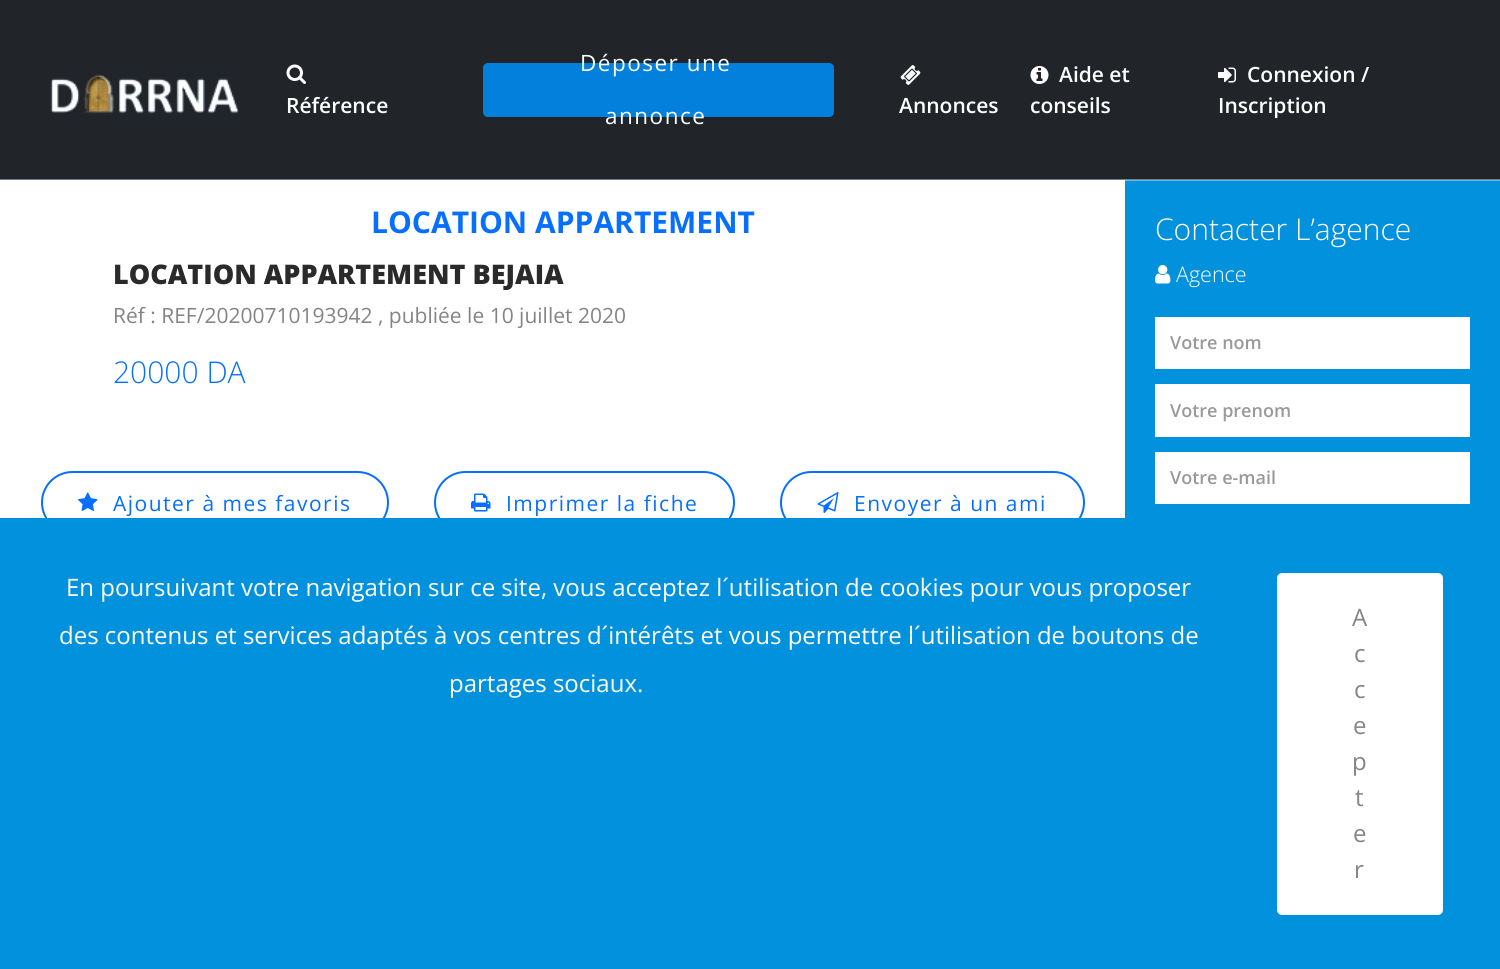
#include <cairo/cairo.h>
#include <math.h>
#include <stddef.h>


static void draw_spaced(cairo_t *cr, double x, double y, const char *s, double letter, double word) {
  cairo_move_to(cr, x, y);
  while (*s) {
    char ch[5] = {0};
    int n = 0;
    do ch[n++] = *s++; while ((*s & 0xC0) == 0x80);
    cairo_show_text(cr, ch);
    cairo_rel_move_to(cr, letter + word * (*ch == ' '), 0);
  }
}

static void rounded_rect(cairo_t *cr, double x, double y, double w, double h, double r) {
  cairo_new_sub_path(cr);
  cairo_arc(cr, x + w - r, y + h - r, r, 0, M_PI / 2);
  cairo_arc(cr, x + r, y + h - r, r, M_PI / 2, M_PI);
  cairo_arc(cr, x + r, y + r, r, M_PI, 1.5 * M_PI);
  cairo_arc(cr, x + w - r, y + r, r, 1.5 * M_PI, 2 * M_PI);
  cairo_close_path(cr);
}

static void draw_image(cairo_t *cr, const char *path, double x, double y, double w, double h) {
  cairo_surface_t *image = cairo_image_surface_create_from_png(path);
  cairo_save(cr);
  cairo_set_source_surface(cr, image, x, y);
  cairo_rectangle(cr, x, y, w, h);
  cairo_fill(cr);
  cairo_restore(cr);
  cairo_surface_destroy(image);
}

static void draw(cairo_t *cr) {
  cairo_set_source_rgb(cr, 1, 1, 1);
  cairo_paint(cr);
  cairo_set_source_rgb(cr, 33 / 255.0, 37 / 255.0, 41 / 255.0);
  cairo_rectangle(cr, 0, 0, 1500, 179);
  cairo_fill(cr);
  cairo_set_source_rgb(cr, 122 / 255.0, 124 / 255.0, 127 / 255.0);
  cairo_rectangle(cr, 0, 179, 1500, 1);
  cairo_fill(cr);
  draw_image(cr, "images/1.png", 50, 73, 189, 41);
  draw_image(cr, "images/2.png", 286, 64, 20, 20);
  cairo_set_source_rgb(cr, 2 / 255.0, 128 / 255.0, 220 / 255.0);
  rounded_rect(cr, 483, 63, 351, 54, 5);
  cairo_fill(cr);
  draw_image(cr, "images/3.png", 900, 65, 21, 20);
  draw_image(cr, "images/4.png", 1030, 66, 19, 18);
  draw_image(cr, "images/5.png", 1218, 67, 18, 16);
  rounded_rect(cr, 42, 472, 346, 61, 30.5);
  cairo_set_source_rgb(cr, 8 / 255.0, 111 / 255.0, 252 / 255.0);
  cairo_stroke(cr);
  draw_image(cr, "images/6.png", 78, 492, 20, 19);
  rounded_rect(cr, 435, 472, 299, 61, 30.5);
  cairo_stroke(cr);
  draw_image(cr, "images/7.png", 471, 493, 20, 19);
  rounded_rect(cr, 781, 472, 303, 61, 30.5);
  cairo_stroke(cr);
  draw_image(cr, "images/8.png", 817, 492, 22, 21);
  cairo_set_source_rgb(cr, 2 / 255.0, 145 / 255.0, 220 / 255.0);
  cairo_rectangle(cr, 1125, 181, 375, 337);
  cairo_fill(cr);
  cairo_set_source_rgb(cr, 103 / 255.0, 189 / 255.0, 234 / 255.0);
  cairo_rectangle(cr, 1125, 180, 375, 1);
  cairo_fill(cr);
  draw_image(cr, "images/9.png", 1155, 265, 16, 19);
  cairo_set_source_rgb(cr, 1, 1, 1);
  cairo_rectangle(cr, 1155, 317, 315, 52);
  cairo_fill(cr);
  cairo_rectangle(cr, 1155, 384, 315, 53);
  cairo_fill(cr);
  cairo_rectangle(cr, 1155, 452, 315, 52);
  cairo_fill(cr);
  cairo_set_source_rgb(cr, 2 / 255.0, 145 / 255.0, 220 / 255.0);
  cairo_rectangle(cr, 0, 518, 1500, 451);
  cairo_fill(cr);
  cairo_set_source_rgb(cr, 1, 1, 1);
  rounded_rect(cr, 1278.5, 574.5, 163, 339, 3.5);
  cairo_fill_preserve(cr);
  cairo_set_line_width(cr, 3);
  cairo_stroke(cr);
  cairo_select_font_face(cr, "Open Sans SemiBold", CAIRO_FONT_SLANT_NORMAL, CAIRO_FONT_WEIGHT_NORMAL);
  cairo_set_font_size(cr, 21);
  cairo_move_to(cr, 286, 113);
  cairo_show_text(cr, "Référence");
  cairo_select_font_face(cr, "Open Sans", CAIRO_FONT_SLANT_NORMAL, CAIRO_FONT_WEIGHT_NORMAL);
  cairo_set_font_size(cr, 22.5);
  draw_spaced(cr, 580, 71, "Déposer une", 1.5, 0);
  draw_spaced(cr, 605, 124, "annonce", 1.5, 0);
  cairo_select_font_face(cr, "Open Sans SemiBold", CAIRO_FONT_SLANT_NORMAL, CAIRO_FONT_WEIGHT_NORMAL);
  cairo_set_font_size(cr, 21);
  cairo_move_to(cr, 899, 113);
  cairo_show_text(cr, "Annonces");
  cairo_move_to(cr, 1059, 82);
  cairo_show_text(cr, "Aide et");
  cairo_move_to(cr, 1030, 113);
  cairo_show_text(cr, "conseils");
  cairo_move_to(cr, 1247, 82);
  cairo_show_text(cr, "Connexion /");
  cairo_move_to(cr, 1218, 113);
  cairo_show_text(cr, "Inscription");
  cairo_select_font_face(cr, "Open Sans", CAIRO_FONT_SLANT_NORMAL, CAIRO_FONT_WEIGHT_BOLD);
  cairo_set_font_size(cr, 30);
  cairo_set_source_rgb(cr, 8 / 255.0, 111 / 255.0, 252 / 255.0);
  cairo_move_to(cr, 371, 233);
  cairo_show_text(cr, "LOCATION APPARTEMENT");
  cairo_select_font_face(cr, "Open Sans ExtraBold", CAIRO_FONT_SLANT_NORMAL, CAIRO_FONT_WEIGHT_NORMAL);
  cairo_set_font_size(cr, 27);
  cairo_set_source_rgb(cr, 42 / 255.0, 42 / 255.0, 42 / 255.0);
  cairo_move_to(cr, 113, 284);
  cairo_show_text(cr, "LOCATION APPARTEMENT BEJAIA");
  cairo_select_font_face(cr, "Open Sans", CAIRO_FONT_SLANT_NORMAL, CAIRO_FONT_WEIGHT_NORMAL);
  cairo_set_font_size(cr, 21);
  cairo_set_source_rgb(cr, 132 / 255.0, 132 / 255.0, 132 / 255.0);
  cairo_move_to(cr, 113, 323);
  cairo_show_text(cr, "Réf : REF/20200710193942 , publiée le 10 juillet 2020");
  cairo_select_font_face(cr, "Open Sans Light", CAIRO_FONT_SLANT_NORMAL, CAIRO_FONT_WEIGHT_NORMAL);
  cairo_set_font_size(cr, 30);
  cairo_set_source_rgb(cr, 8 / 255.0, 111 / 255.0, 252 / 255.0);
  cairo_move_to(cr, 113, 383);
  cairo_show_text(cr, "20000 DA");
  cairo_select_font_face(cr, "Open Sans", CAIRO_FONT_SLANT_NORMAL, CAIRO_FONT_WEIGHT_NORMAL);
  cairo_set_font_size(cr, 21);
  draw_spaced(cr, 113, 511, "Ajouter à mes favoris", 1.5, 0);
  draw_spaced(cr, 506, 511, "Imprimer la fiche", 1.5, 0);
  draw_spaced(cr, 854, 511, "Envoyer à un ami", 1.5, 0);
  cairo_select_font_face(cr, "Open Sans Light", CAIRO_FONT_SLANT_NORMAL, CAIRO_FONT_WEIGHT_NORMAL);
  cairo_set_font_size(cr, 30);
  cairo_set_source_rgb(cr, 1, 1, 1);
  cairo_move_to(cr, 1155, 240);
  cairo_show_text(cr, "Contacter L’agence");
  cairo_set_font_size(cr, 21.5);
  cairo_move_to(cr, 1176, 282);
  cairo_show_text(cr, "Agence");
  cairo_select_font_face(cr, "Open Sans SemiBold", CAIRO_FONT_SLANT_NORMAL, CAIRO_FONT_WEIGHT_NORMAL);
  cairo_set_font_size(cr, 18);
  cairo_set_source_rgb(cr, 153 / 255.0, 153 / 255.0, 153 / 255.0);
  cairo_move_to(cr, 1170, 349);
  cairo_show_text(cr, "Votre nom");
  cairo_move_to(cr, 1170, 417);
  cairo_show_text(cr, "Votre prenom");
  cairo_move_to(cr, 1170, 484);
  cairo_show_text(cr, "Votre e-mail");
  cairo_select_font_face(cr, "Open Sans", CAIRO_FONT_SLANT_NORMAL, CAIRO_FONT_WEIGHT_NORMAL);
  cairo_set_font_size(cr, 24);
  cairo_set_source_rgb(cr, 1, 1, 1);
  cairo_move_to(cr, 66, 596);
  cairo_show_text(cr, "En poursuivant votre navigation sur ce site, vous acceptez l´utilisation de cookies pour vous proposer");
  cairo_move_to(cr, 59, 644);
  cairo_show_text(cr, "des contenus et services adaptés à vos centres d´intérêts et vous permettre l´utilisation de boutons de");
  cairo_move_to(cr, 449, 692);
  cairo_show_text(cr, "partages sociaux.");
  cairo_set_source_rgb(cr, 132 / 255.0, 132 / 255.0, 132 / 255.0);
  draw_spaced(cr, 1352, 626, "A", 1.5, 0);
  draw_spaced(cr, 1354, 662, "c", 1.5, 0);
  draw_spaced(cr, 1354, 698, "c", 1.5, 0);
  draw_spaced(cr, 1353, 734, "e", 1.5, 0);
  draw_spaced(cr, 1352, 770, "p", 1.5, 0);
  draw_spaced(cr, 1355, 806, "t", 1.5, 0);
  draw_spaced(cr, 1353, 842, "e", 1.5, 0);
  draw_spaced(cr, 1354, 878, "r", 1.5, 0);
}

int main(void) {
  cairo_surface_t *surface = cairo_image_surface_create(CAIRO_FORMAT_RGB24, 1500, 969);
  cairo_t *cr = cairo_create(surface);
  cairo_font_options_t *options = cairo_font_options_create();
  cairo_font_options_set_hint_metrics(options, CAIRO_HINT_METRICS_OFF);
  cairo_font_options_set_hint_style(options, CAIRO_HINT_STYLE_NONE);
  cairo_set_font_options(cr, options);
  cairo_set_miter_limit(cr, 4);
  draw(cr);
  cairo_surface_write_to_png(surface, "out.png");
  cairo_font_options_destroy(options);
  cairo_destroy(cr);
  cairo_surface_destroy(surface);
  return 0;
}
